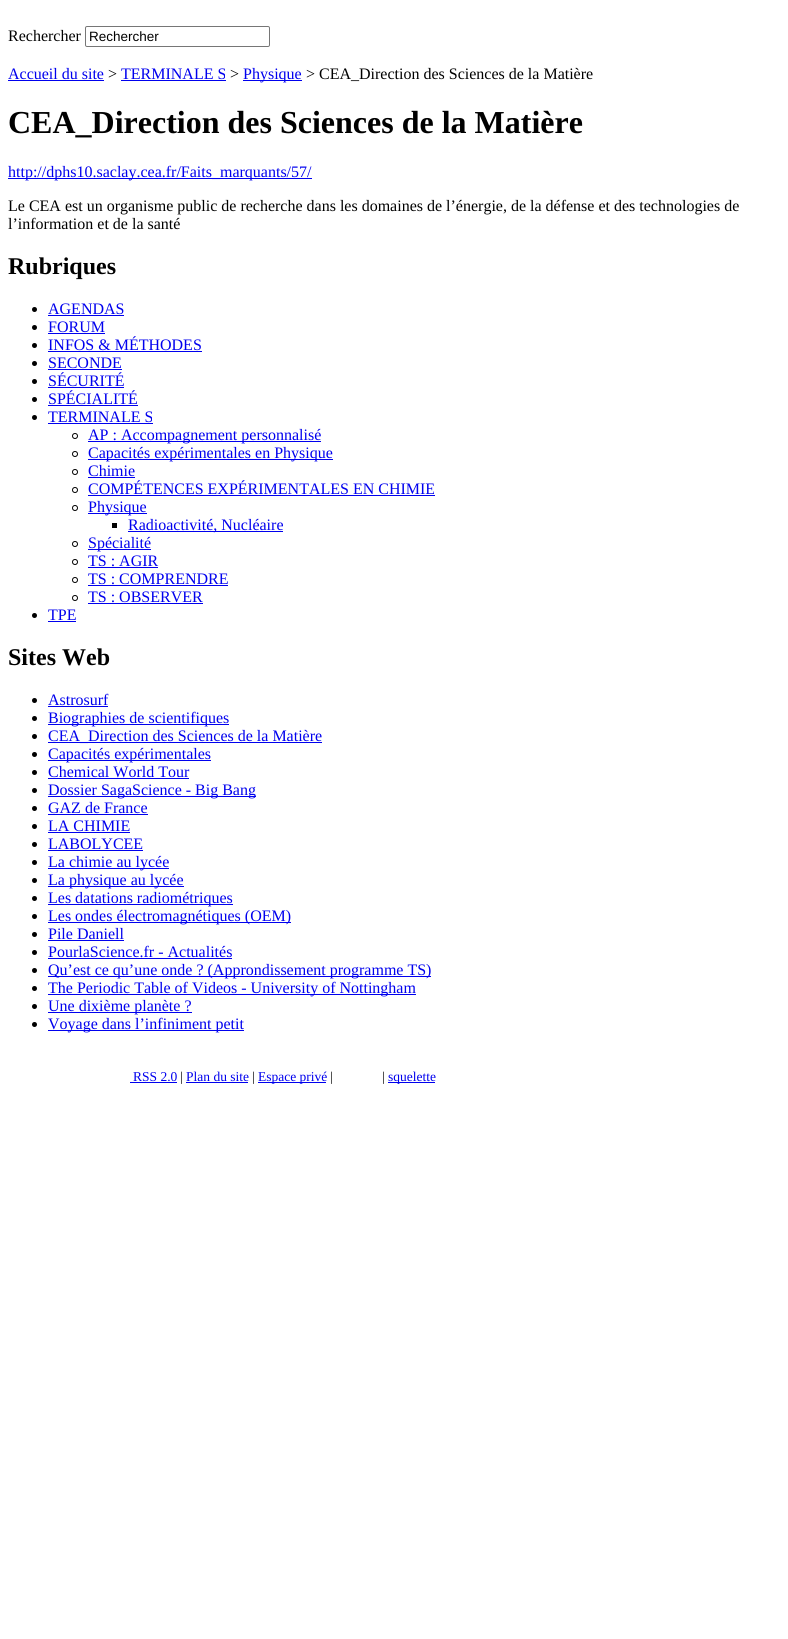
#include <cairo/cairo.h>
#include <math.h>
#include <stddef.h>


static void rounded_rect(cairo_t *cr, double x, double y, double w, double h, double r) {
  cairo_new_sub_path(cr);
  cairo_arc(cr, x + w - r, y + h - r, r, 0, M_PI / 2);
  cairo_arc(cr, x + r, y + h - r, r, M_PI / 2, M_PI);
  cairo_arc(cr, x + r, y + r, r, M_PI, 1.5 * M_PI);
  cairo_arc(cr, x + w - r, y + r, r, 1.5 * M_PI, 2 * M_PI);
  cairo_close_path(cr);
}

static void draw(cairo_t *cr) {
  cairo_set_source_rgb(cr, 1, 1, 1);
  cairo_paint(cr);
  rounded_rect(cr, 85.5, 26.5, 184, 20, 1.5);
  cairo_set_source_rgb(cr, 118 / 255.0, 118 / 255.0, 118 / 255.0);
  cairo_set_line_width(cr, 1);
  cairo_stroke(cr);
  cairo_set_source_rgb(cr, 0, 0, 238 / 255.0);
  cairo_rectangle(cr, 8, 80, 96, 1);
  cairo_fill(cr);
  cairo_rectangle(cr, 121, 80, 105, 1);
  cairo_fill(cr);
  cairo_rectangle(cr, 243, 80, 59, 1);
  cairo_fill(cr);
  cairo_rectangle(cr, 8, 178, 304, 1);
  cairo_fill(cr);
  cairo_set_source_rgb(cr, 0, 0, 0);
  cairo_arc(cr, 34.5, 309.5, 2.5, 0, 2 * M_PI);
  cairo_fill(cr);
  cairo_set_source_rgb(cr, 0, 0, 238 / 255.0);
  cairo_rectangle(cr, 48, 315, 76, 1);
  cairo_fill(cr);
  cairo_set_source_rgb(cr, 0, 0, 0);
  cairo_arc(cr, 34.5, 327.5, 2.5, 0, 2 * M_PI);
  cairo_fill(cr);
  cairo_set_source_rgb(cr, 0, 0, 238 / 255.0);
  cairo_rectangle(cr, 48, 333, 57, 1);
  cairo_fill(cr);
  cairo_set_source_rgb(cr, 0, 0, 0);
  cairo_arc(cr, 34.5, 345.5, 2.5, 0, 2 * M_PI);
  cairo_fill(cr);
  cairo_set_source_rgb(cr, 0, 0, 238 / 255.0);
  cairo_rectangle(cr, 48, 351, 154, 1);
  cairo_fill(cr);
  cairo_set_source_rgb(cr, 0, 0, 0);
  cairo_arc(cr, 34.5, 363.5, 2.5, 0, 2 * M_PI);
  cairo_fill(cr);
  cairo_set_source_rgb(cr, 0, 0, 238 / 255.0);
  cairo_rectangle(cr, 48, 369, 74, 1);
  cairo_fill(cr);
  cairo_set_source_rgb(cr, 0, 0, 0);
  cairo_arc(cr, 34.5, 381.5, 2.5, 0, 2 * M_PI);
  cairo_fill(cr);
  cairo_set_source_rgb(cr, 0, 0, 238 / 255.0);
  cairo_rectangle(cr, 48, 387, 76, 1);
  cairo_fill(cr);
  cairo_set_source_rgb(cr, 0, 0, 0);
  cairo_arc(cr, 34.5, 399.5, 2.5, 0, 2 * M_PI);
  cairo_fill(cr);
  cairo_set_source_rgb(cr, 0, 0, 238 / 255.0);
  cairo_rectangle(cr, 48, 405, 90, 1);
  cairo_fill(cr);
  cairo_set_source_rgb(cr, 0, 0, 0);
  cairo_arc(cr, 34.5, 417.5, 2.5, 0, 2 * M_PI);
  cairo_fill(cr);
  cairo_set_source_rgb(cr, 0, 0, 238 / 255.0);
  cairo_rectangle(cr, 48, 423, 105, 1);
  cairo_fill(cr);
  cairo_arc(cr, 75, 436, 2.5, 0, 2 * M_PI);
  cairo_set_source_rgb(cr, 0, 0, 0);
  cairo_stroke(cr);
  cairo_set_source_rgb(cr, 0, 0, 238 / 255.0);
  cairo_rectangle(cr, 88, 441, 233, 1);
  cairo_fill(cr);
  cairo_arc(cr, 75, 454, 2.5, 0, 2 * M_PI);
  cairo_set_source_rgb(cr, 0, 0, 0);
  cairo_stroke(cr);
  cairo_set_source_rgb(cr, 0, 0, 238 / 255.0);
  cairo_rectangle(cr, 88, 459, 245, 1);
  cairo_fill(cr);
  cairo_arc(cr, 75, 472, 2.5, 0, 2 * M_PI);
  cairo_set_source_rgb(cr, 0, 0, 0);
  cairo_stroke(cr);
  cairo_set_source_rgb(cr, 0, 0, 238 / 255.0);
  cairo_rectangle(cr, 88, 477, 47, 1);
  cairo_fill(cr);
  cairo_arc(cr, 75, 490, 2.5, 0, 2 * M_PI);
  cairo_set_source_rgb(cr, 0, 0, 0);
  cairo_stroke(cr);
  cairo_set_source_rgb(cr, 0, 0, 238 / 255.0);
  cairo_rectangle(cr, 88, 495, 347, 1);
  cairo_fill(cr);
  cairo_arc(cr, 75, 508, 2.5, 0, 2 * M_PI);
  cairo_set_source_rgb(cr, 0, 0, 0);
  cairo_stroke(cr);
  cairo_set_source_rgb(cr, 0, 0, 238 / 255.0);
  cairo_rectangle(cr, 88, 513, 59, 1);
  cairo_fill(cr);
  cairo_set_source_rgb(cr, 0, 0, 0);
  cairo_rectangle(cr, 112, 523, 5, 5);
  cairo_fill(cr);
  cairo_set_source_rgb(cr, 0, 0, 238 / 255.0);
  cairo_rectangle(cr, 128, 531, 155, 1);
  cairo_fill(cr);
  cairo_arc(cr, 75, 544, 2.5, 0, 2 * M_PI);
  cairo_set_source_rgb(cr, 0, 0, 0);
  cairo_stroke(cr);
  cairo_set_source_rgb(cr, 0, 0, 238 / 255.0);
  cairo_rectangle(cr, 88, 549, 63, 1);
  cairo_fill(cr);
  cairo_arc(cr, 75, 562, 2.5, 0, 2 * M_PI);
  cairo_set_source_rgb(cr, 0, 0, 0);
  cairo_stroke(cr);
  cairo_set_source_rgb(cr, 0, 0, 238 / 255.0);
  cairo_rectangle(cr, 88, 567, 70, 1);
  cairo_fill(cr);
  cairo_arc(cr, 75, 580, 2.5, 0, 2 * M_PI);
  cairo_set_source_rgb(cr, 0, 0, 0);
  cairo_stroke(cr);
  cairo_set_source_rgb(cr, 0, 0, 238 / 255.0);
  cairo_rectangle(cr, 88, 585, 140, 1);
  cairo_fill(cr);
  cairo_arc(cr, 75, 598, 2.5, 0, 2 * M_PI);
  cairo_set_source_rgb(cr, 0, 0, 0);
  cairo_stroke(cr);
  cairo_set_source_rgb(cr, 0, 0, 238 / 255.0);
  cairo_rectangle(cr, 88, 603, 115, 1);
  cairo_fill(cr);
  cairo_set_source_rgb(cr, 0, 0, 0);
  cairo_arc(cr, 34.5, 615.5, 2.5, 0, 2 * M_PI);
  cairo_fill(cr);
  cairo_set_source_rgb(cr, 0, 0, 238 / 255.0);
  cairo_rectangle(cr, 48, 621, 28, 1);
  cairo_fill(cr);
  cairo_set_source_rgb(cr, 0, 0, 0);
  cairo_arc(cr, 34.5, 700.5, 2.5, 0, 2 * M_PI);
  cairo_fill(cr);
  cairo_set_source_rgb(cr, 0, 0, 238 / 255.0);
  cairo_rectangle(cr, 48, 706, 60, 1);
  cairo_fill(cr);
  cairo_set_source_rgb(cr, 0, 0, 0);
  cairo_arc(cr, 34.5, 718.5, 2.5, 0, 2 * M_PI);
  cairo_fill(cr);
  cairo_set_source_rgb(cr, 0, 0, 238 / 255.0);
  cairo_rectangle(cr, 48, 724, 181, 1);
  cairo_fill(cr);
  cairo_set_source_rgb(cr, 0, 0, 0);
  cairo_arc(cr, 34.5, 736.5, 2.5, 0, 2 * M_PI);
  cairo_fill(cr);
  cairo_set_source_rgb(cr, 0, 0, 238 / 255.0);
  cairo_rectangle(cr, 48, 742, 274, 1);
  cairo_fill(cr);
  cairo_set_source_rgb(cr, 0, 0, 0);
  cairo_arc(cr, 34.5, 754.5, 2.5, 0, 2 * M_PI);
  cairo_fill(cr);
  cairo_set_source_rgb(cr, 0, 0, 238 / 255.0);
  cairo_rectangle(cr, 48, 760, 163, 1);
  cairo_fill(cr);
  cairo_set_source_rgb(cr, 0, 0, 0);
  cairo_arc(cr, 34.5, 772.5, 2.5, 0, 2 * M_PI);
  cairo_fill(cr);
  cairo_set_source_rgb(cr, 0, 0, 238 / 255.0);
  cairo_rectangle(cr, 48, 778, 141, 1);
  cairo_fill(cr);
  cairo_set_source_rgb(cr, 0, 0, 0);
  cairo_arc(cr, 34.5, 790.5, 2.5, 0, 2 * M_PI);
  cairo_fill(cr);
  cairo_set_source_rgb(cr, 0, 0, 238 / 255.0);
  cairo_rectangle(cr, 48, 796, 208, 1);
  cairo_fill(cr);
  cairo_set_source_rgb(cr, 0, 0, 0);
  cairo_arc(cr, 34.5, 808.5, 2.5, 0, 2 * M_PI);
  cairo_fill(cr);
  cairo_set_source_rgb(cr, 0, 0, 238 / 255.0);
  cairo_rectangle(cr, 48, 814, 100, 1);
  cairo_fill(cr);
  cairo_set_source_rgb(cr, 0, 0, 0);
  cairo_arc(cr, 34.5, 826.5, 2.5, 0, 2 * M_PI);
  cairo_fill(cr);
  cairo_set_source_rgb(cr, 0, 0, 238 / 255.0);
  cairo_rectangle(cr, 48, 832, 82, 1);
  cairo_fill(cr);
  cairo_set_source_rgb(cr, 0, 0, 0);
  cairo_arc(cr, 34.5, 844.5, 2.5, 0, 2 * M_PI);
  cairo_fill(cr);
  cairo_set_source_rgb(cr, 0, 0, 238 / 255.0);
  cairo_rectangle(cr, 48, 850, 95, 1);
  cairo_fill(cr);
  cairo_set_source_rgb(cr, 0, 0, 0);
  cairo_arc(cr, 34.5, 862.5, 2.5, 0, 2 * M_PI);
  cairo_fill(cr);
  cairo_set_source_rgb(cr, 0, 0, 238 / 255.0);
  cairo_rectangle(cr, 48, 868, 121, 1);
  cairo_fill(cr);
  cairo_set_source_rgb(cr, 0, 0, 0);
  cairo_arc(cr, 34.5, 880.5, 2.5, 0, 2 * M_PI);
  cairo_fill(cr);
  cairo_set_source_rgb(cr, 0, 0, 238 / 255.0);
  cairo_rectangle(cr, 48, 886, 136, 1);
  cairo_fill(cr);
  cairo_set_source_rgb(cr, 0, 0, 0);
  cairo_arc(cr, 34.5, 898.5, 2.5, 0, 2 * M_PI);
  cairo_fill(cr);
  cairo_set_source_rgb(cr, 0, 0, 238 / 255.0);
  cairo_rectangle(cr, 48, 904, 185, 1);
  cairo_fill(cr);
  cairo_set_source_rgb(cr, 0, 0, 0);
  cairo_arc(cr, 34.5, 916.5, 2.5, 0, 2 * M_PI);
  cairo_fill(cr);
  cairo_set_source_rgb(cr, 0, 0, 238 / 255.0);
  cairo_rectangle(cr, 48, 922, 243, 1);
  cairo_fill(cr);
  cairo_set_source_rgb(cr, 0, 0, 0);
  cairo_arc(cr, 34.5, 934.5, 2.5, 0, 2 * M_PI);
  cairo_fill(cr);
  cairo_set_source_rgb(cr, 0, 0, 238 / 255.0);
  cairo_rectangle(cr, 48, 940, 76, 1);
  cairo_fill(cr);
  cairo_set_source_rgb(cr, 0, 0, 0);
  cairo_arc(cr, 34.5, 952.5, 2.5, 0, 2 * M_PI);
  cairo_fill(cr);
  cairo_set_source_rgb(cr, 0, 0, 238 / 255.0);
  cairo_rectangle(cr, 48, 958, 184, 1);
  cairo_fill(cr);
  cairo_set_source_rgb(cr, 0, 0, 0);
  cairo_arc(cr, 34.5, 970.5, 2.5, 0, 2 * M_PI);
  cairo_fill(cr);
  cairo_set_source_rgb(cr, 0, 0, 238 / 255.0);
  cairo_rectangle(cr, 48, 976, 383, 1);
  cairo_fill(cr);
  cairo_set_source_rgb(cr, 0, 0, 0);
  cairo_arc(cr, 34.5, 988.5, 2.5, 0, 2 * M_PI);
  cairo_fill(cr);
  cairo_set_source_rgb(cr, 0, 0, 238 / 255.0);
  cairo_rectangle(cr, 48, 994, 368, 1);
  cairo_fill(cr);
  cairo_set_source_rgb(cr, 0, 0, 0);
  cairo_arc(cr, 34.5, 1006.5, 2.5, 0, 2 * M_PI);
  cairo_fill(cr);
  cairo_set_source_rgb(cr, 0, 0, 238 / 255.0);
  cairo_rectangle(cr, 48, 1012, 144, 1);
  cairo_fill(cr);
  cairo_set_source_rgb(cr, 0, 0, 0);
  cairo_arc(cr, 34.5, 1024.5, 2.5, 0, 2 * M_PI);
  cairo_fill(cr);
  cairo_set_source_rgb(cr, 0, 0, 238 / 255.0);
  cairo_rectangle(cr, 48, 1030, 196, 1);
  cairo_fill(cr);
  cairo_rectangle(cr, 130, 1082, 47, 1);
  cairo_fill(cr);
  cairo_rectangle(cr, 186, 1082, 62, 1);
  cairo_fill(cr);
  cairo_rectangle(cr, 258, 1082, 68, 1);
  cairo_fill(cr);
  cairo_rectangle(cr, 388, 1082, 47, 1);
  cairo_fill(cr);
  cairo_select_font_face(cr, "Liberation Serif", CAIRO_FONT_SLANT_NORMAL, CAIRO_FONT_WEIGHT_NORMAL);
  cairo_set_font_size(cr, 16);
  cairo_set_source_rgb(cr, 0, 0, 0);
  cairo_move_to(cr, 8, 41);
  cairo_show_text(cr, "Rechercher");
  cairo_select_font_face(cr, "Liberation Sans", CAIRO_FONT_SLANT_NORMAL, CAIRO_FONT_WEIGHT_NORMAL);
  cairo_set_font_size(cr, 13.5);
  cairo_move_to(cr, 89, 41);
  cairo_show_text(cr, "Rechercher");
  cairo_select_font_face(cr, "Liberation Serif", CAIRO_FONT_SLANT_NORMAL, CAIRO_FONT_WEIGHT_NORMAL);
  cairo_set_font_size(cr, 16);
  cairo_set_source_rgb(cr, 0, 0, 238 / 255.0);
  cairo_move_to(cr, 8, 79);
  cairo_show_text(cr, "Accueil du site");
  cairo_set_source_rgb(cr, 0, 0, 0);
  cairo_move_to(cr, 108, 79);
  cairo_show_text(cr, ">");
  cairo_set_source_rgb(cr, 0, 0, 238 / 255.0);
  cairo_move_to(cr, 121, 79);
  cairo_show_text(cr, "TERMINALE S");
  cairo_set_source_rgb(cr, 0, 0, 0);
  cairo_move_to(cr, 230, 79);
  cairo_show_text(cr, ">");
  cairo_set_source_rgb(cr, 0, 0, 238 / 255.0);
  cairo_move_to(cr, 243, 79);
  cairo_show_text(cr, "Physique");
  cairo_set_source_rgb(cr, 0, 0, 0);
  cairo_move_to(cr, 306, 79);
  cairo_show_text(cr, "> CEA_Direction des Sciences de la Matière");
  cairo_select_font_face(cr, "Liberation Serif", CAIRO_FONT_SLANT_NORMAL, CAIRO_FONT_WEIGHT_BOLD);
  cairo_set_font_size(cr, 32);
  cairo_move_to(cr, 8, 133);
  cairo_show_text(cr, "CEA_Direction des Sciences de la Matière");
  cairo_select_font_face(cr, "Liberation Serif", CAIRO_FONT_SLANT_NORMAL, CAIRO_FONT_WEIGHT_NORMAL);
  cairo_set_font_size(cr, 16);
  cairo_set_source_rgb(cr, 0, 0, 238 / 255.0);
  cairo_move_to(cr, 8, 177);
  cairo_show_text(cr, "http://dphs10.saclay.cea.fr/Faits_marquants/57/");
  cairo_set_source_rgb(cr, 0, 0, 0);
  cairo_move_to(cr, 8, 211);
  cairo_show_text(cr, "Le CEA est un organisme public de recherche dans les domaines de l’énergie, de la défense et des technologies de");
  cairo_move_to(cr, 8, 229);
  cairo_show_text(cr, "l’information et de la santé");
  cairo_select_font_face(cr, "Liberation Serif", CAIRO_FONT_SLANT_NORMAL, CAIRO_FONT_WEIGHT_BOLD);
  cairo_set_font_size(cr, 24);
  cairo_move_to(cr, 8, 274);
  cairo_show_text(cr, "Rubriques");
  cairo_select_font_face(cr, "Liberation Serif", CAIRO_FONT_SLANT_NORMAL, CAIRO_FONT_WEIGHT_NORMAL);
  cairo_set_font_size(cr, 16);
  cairo_set_source_rgb(cr, 0, 0, 238 / 255.0);
  cairo_move_to(cr, 48, 314);
  cairo_show_text(cr, "AGENDAS");
  cairo_move_to(cr, 48, 332);
  cairo_show_text(cr, "FORUM");
  cairo_move_to(cr, 48, 350);
  cairo_show_text(cr, "INFOS & MÉTHODES");
  cairo_move_to(cr, 48, 368);
  cairo_show_text(cr, "SECONDE");
  cairo_move_to(cr, 48, 386);
  cairo_show_text(cr, "SÉCURITÉ");
  cairo_move_to(cr, 48, 404);
  cairo_show_text(cr, "SPÉCIALITÉ");
  cairo_move_to(cr, 48, 422);
  cairo_show_text(cr, "TERMINALE S");
  cairo_move_to(cr, 88, 440);
  cairo_show_text(cr, "AP : Accompagnement personnalisé");
  cairo_move_to(cr, 88, 458);
  cairo_show_text(cr, "Capacités expérimentales en Physique");
  cairo_move_to(cr, 88, 476);
  cairo_show_text(cr, "Chimie");
  cairo_move_to(cr, 88, 494);
  cairo_show_text(cr, "COMPÉTENCES EXPÉRIMENTALES EN CHIMIE");
  cairo_move_to(cr, 88, 512);
  cairo_show_text(cr, "Physique");
  cairo_move_to(cr, 128, 530);
  cairo_show_text(cr, "Radioactivité, Nucléaire");
  cairo_move_to(cr, 88, 548);
  cairo_show_text(cr, "Spécialité");
  cairo_move_to(cr, 88, 566);
  cairo_show_text(cr, "TS : AGIR");
  cairo_move_to(cr, 88, 584);
  cairo_show_text(cr, "TS : COMPRENDRE");
  cairo_move_to(cr, 88, 602);
  cairo_show_text(cr, "TS : OBSERVER");
  cairo_move_to(cr, 48, 620);
  cairo_show_text(cr, "TPE");
  cairo_select_font_face(cr, "Liberation Serif", CAIRO_FONT_SLANT_NORMAL, CAIRO_FONT_WEIGHT_BOLD);
  cairo_set_font_size(cr, 24);
  cairo_set_source_rgb(cr, 0, 0, 0);
  cairo_move_to(cr, 8, 665);
  cairo_show_text(cr, "Sites Web");
  cairo_select_font_face(cr, "Liberation Serif", CAIRO_FONT_SLANT_NORMAL, CAIRO_FONT_WEIGHT_NORMAL);
  cairo_set_font_size(cr, 16);
  cairo_set_source_rgb(cr, 0, 0, 238 / 255.0);
  cairo_move_to(cr, 48, 705);
  cairo_show_text(cr, "Astrosurf");
  cairo_move_to(cr, 48, 723);
  cairo_show_text(cr, "Biographies de scientifiques");
  cairo_move_to(cr, 48, 741);
  cairo_show_text(cr, "CEA_Direction des Sciences de la Matière");
  cairo_move_to(cr, 48, 759);
  cairo_show_text(cr, "Capacités expérimentales");
  cairo_move_to(cr, 48, 777);
  cairo_show_text(cr, "Chemical World Tour");
  cairo_move_to(cr, 48, 795);
  cairo_show_text(cr, "Dossier SagaScience - Big Bang");
  cairo_move_to(cr, 48, 813);
  cairo_show_text(cr, "GAZ de France");
  cairo_move_to(cr, 48, 831);
  cairo_show_text(cr, "LA CHIMIE");
  cairo_move_to(cr, 48, 849);
  cairo_show_text(cr, "LABOLYCEE");
  cairo_move_to(cr, 48, 867);
  cairo_show_text(cr, "La chimie au lycée");
  cairo_move_to(cr, 48, 885);
  cairo_show_text(cr, "La physique au lycée");
  cairo_move_to(cr, 48, 903);
  cairo_show_text(cr, "Les datations radiométriques");
  cairo_move_to(cr, 48, 921);
  cairo_show_text(cr, "Les ondes électromagnétiques (OEM)");
  cairo_move_to(cr, 48, 939);
  cairo_show_text(cr, "Pile Daniell");
  cairo_move_to(cr, 48, 957);
  cairo_show_text(cr, "PourlaScience.fr - Actualités");
  cairo_move_to(cr, 48, 975);
  cairo_show_text(cr, "Qu’est ce qu’une onde ? (Approndissement programme TS)");
  cairo_move_to(cr, 48, 993);
  cairo_show_text(cr, "The Periodic Table of Videos - University of Nottingham");
  cairo_move_to(cr, 48, 1011);
  cairo_show_text(cr, "Une dixième planète ?");
  cairo_move_to(cr, 48, 1029);
  cairo_show_text(cr, "Voyage dans l’infiniment petit");
  cairo_set_font_size(cr, 13.5);
  cairo_move_to(cr, 133, 1081);
  cairo_show_text(cr, "RSS 2.0");
  cairo_set_source_rgb(cr, 0, 0, 0);
  cairo_move_to(cr, 180, 1081);
  cairo_show_text(cr, "|");
  cairo_set_source_rgb(cr, 0, 0, 238 / 255.0);
  cairo_move_to(cr, 186, 1081);
  cairo_show_text(cr, "Plan du site");
  cairo_set_source_rgb(cr, 0, 0, 0);
  cairo_move_to(cr, 252, 1081);
  cairo_show_text(cr, "|");
  cairo_set_source_rgb(cr, 0, 0, 238 / 255.0);
  cairo_move_to(cr, 258, 1081);
  cairo_show_text(cr, "Espace privé");
  cairo_set_source_rgb(cr, 0, 0, 0);
  cairo_move_to(cr, 330, 1081);
  cairo_show_text(cr, "|");
  cairo_move_to(cr, 382, 1081);
  cairo_show_text(cr, "|");
  cairo_set_source_rgb(cr, 0, 0, 238 / 255.0);
  cairo_move_to(cr, 388, 1081);
  cairo_show_text(cr, "squelette");
}

int main(void) {
  cairo_surface_t *surface = cairo_image_surface_create(CAIRO_FORMAT_RGB24, 788, 1639);
  cairo_t *cr = cairo_create(surface);
  cairo_font_options_t *options = cairo_font_options_create();
  cairo_font_options_set_hint_metrics(options, CAIRO_HINT_METRICS_OFF);
  cairo_font_options_set_hint_style(options, CAIRO_HINT_STYLE_NONE);
  cairo_set_font_options(cr, options);
  cairo_set_miter_limit(cr, 4);
  draw(cr);
  cairo_surface_write_to_png(surface, "out.png");
  cairo_font_options_destroy(options);
  cairo_destroy(cr);
  cairo_surface_destroy(surface);
  return 0;
}
